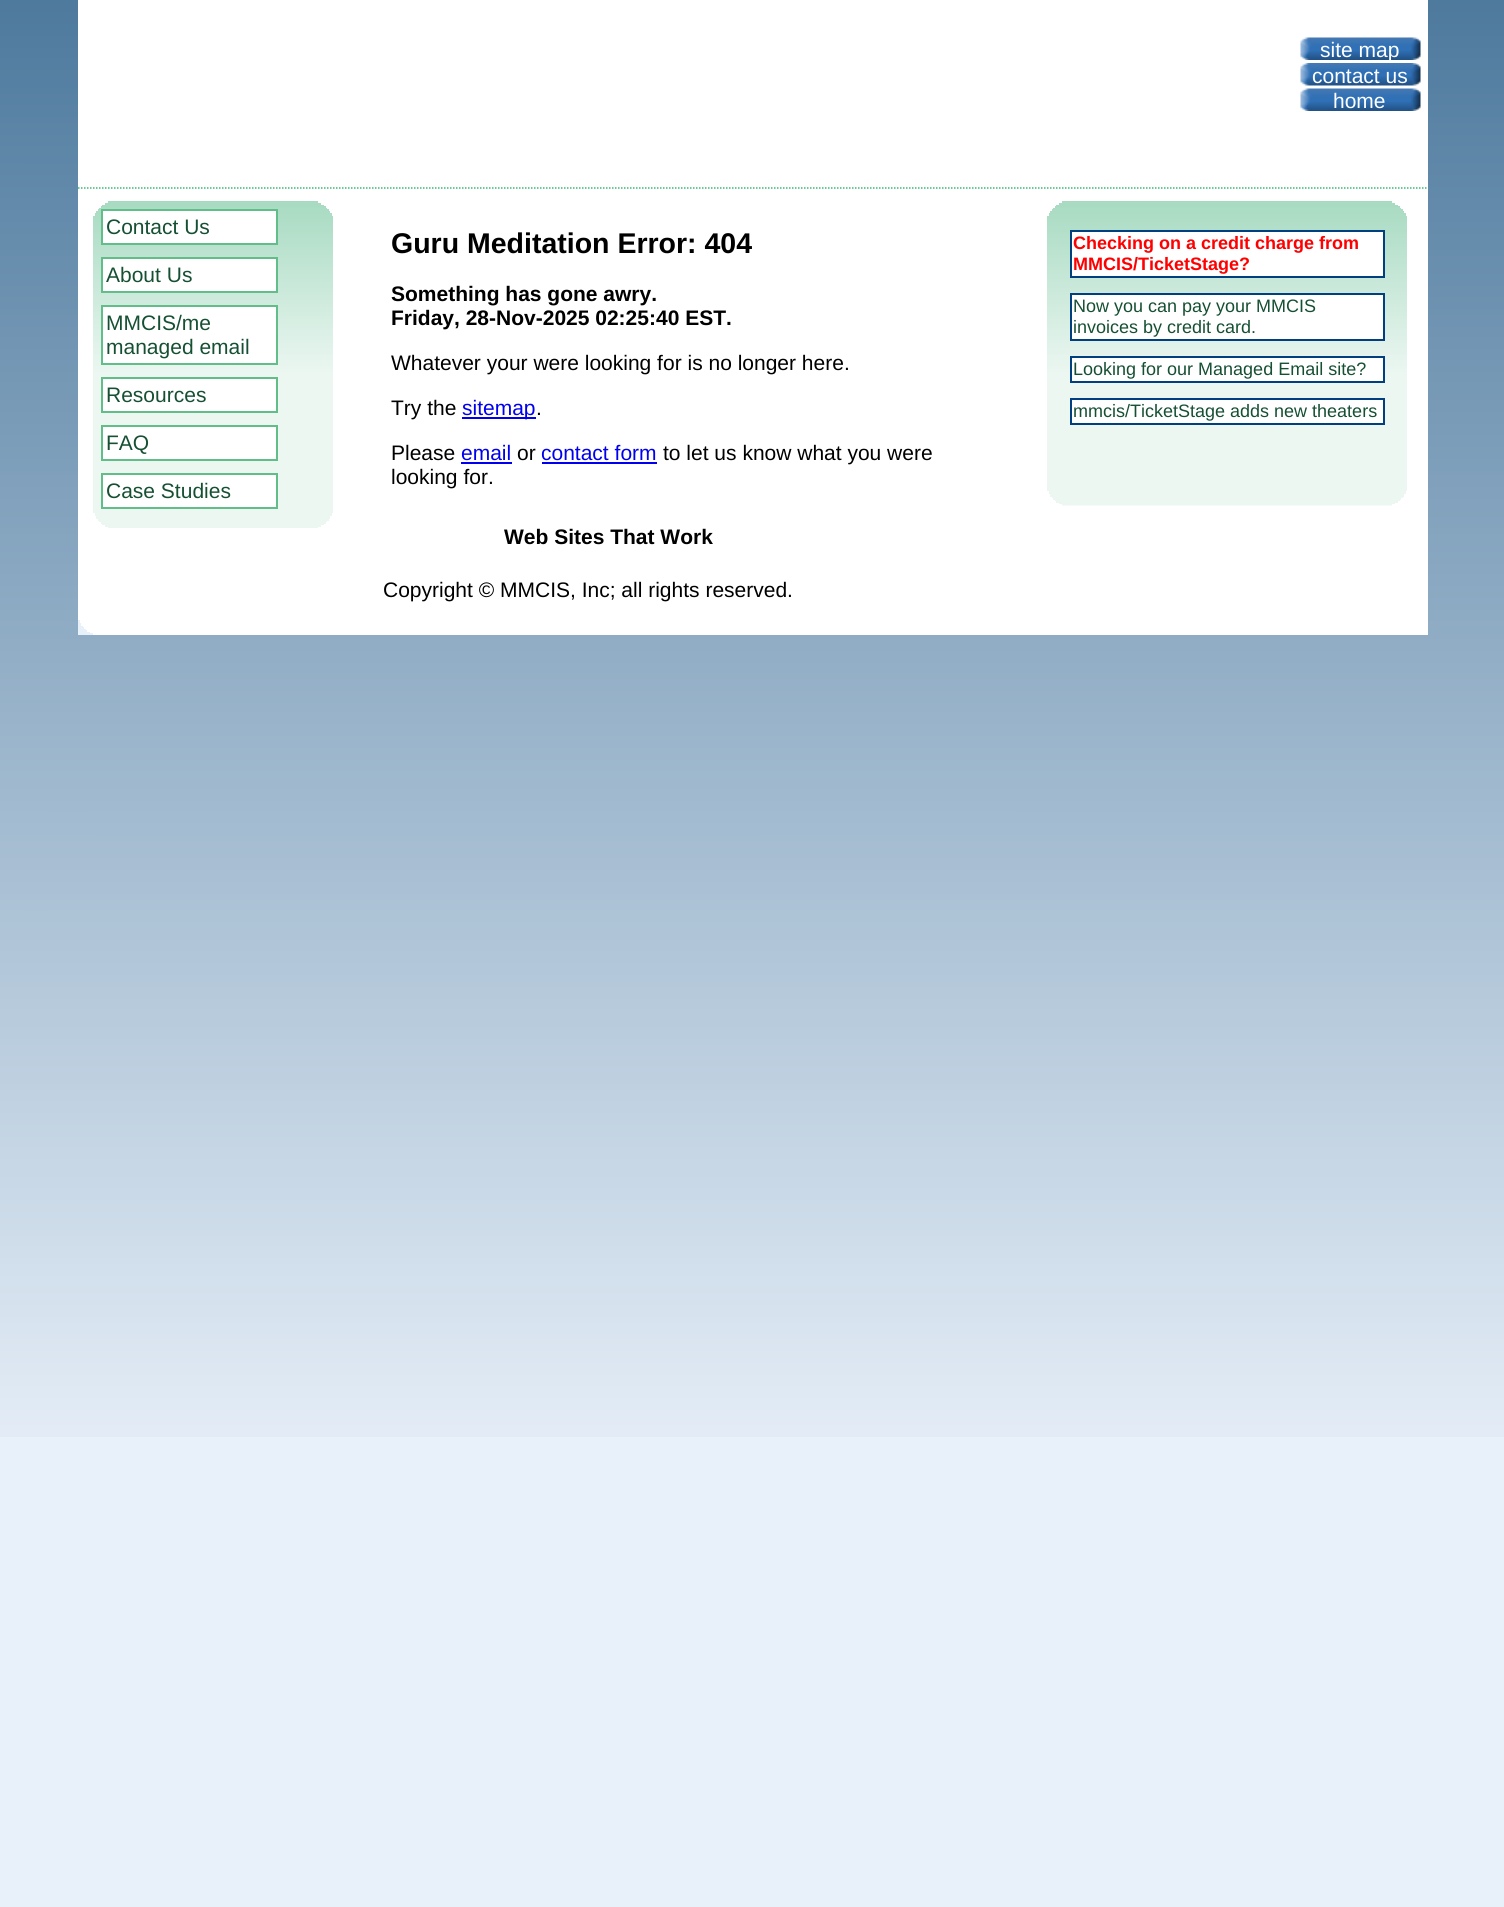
#include <cairo/cairo.h>
#include <math.h>
#include <stddef.h>


static void draw_image(cairo_t *cr, const char *path, double x, double y, double w, double h) {
  cairo_surface_t *image = cairo_image_surface_create_from_png(path);
  cairo_save(cr);
  cairo_set_source_surface(cr, image, x, y);
  cairo_rectangle(cr, x, y, w, h);
  cairo_fill(cr);
  cairo_restore(cr);
  cairo_surface_destroy(image);
}

static void draw(cairo_t *cr) {
  cairo_set_source_rgb(cr, 232 / 255.0, 240 / 255.0, 249 / 255.0);
  cairo_paint(cr);
  draw_image(cr, "images/1.png", 0, 0, 1504, 1437);
  cairo_set_source_rgb(cr, 1, 1, 1);
  cairo_rectangle(cr, 78, 189, 1350, 446);
  cairo_fill(cr);
  cairo_rectangle(cr, 78, 0, 1350, 189);
  cairo_fill(cr);
  cairo_new_path(cr);
  cairo_move_to(cr, 78, 188);
  cairo_line_to(cr, 1428, 188);
  cairo_set_source_rgb(cr, 58 / 255.0, 182 / 255.0, 121 / 255.0);
  cairo_set_line_width(cr, 1.5);
  cairo_set_dash(cr, (double[]){1.5, 1.5}, 2, 0);
  cairo_stroke(cr);
  draw_image(cr, "images/2.png", 1300, 37, 121, 23);
  draw_image(cr, "images/3.png", 1300, 63, 121, 23);
  draw_image(cr, "images/2.png", 1300, 88, 121, 23);
  draw_image(cr, "images/4.png", 93, 201, 240, 327);
  cairo_set_source_rgb(cr, 1, 1, 1);
  cairo_rectangle(cr, 318, 201, 15, 2);
  cairo_fill(cr);
  cairo_rectangle(cr, 93, 201, 15, 2);
  cairo_fill(cr);
  cairo_rectangle(cr, 321, 203, 12, 2);
  cairo_fill(cr);
  cairo_rectangle(cr, 93, 203, 12, 2);
  cairo_fill(cr);
  cairo_rectangle(cr, 324, 205, 9, 1);
  cairo_fill(cr);
  cairo_rectangle(cr, 93, 205, 9, 1);
  cairo_fill(cr);
  cairo_rectangle(cr, 326, 206, 7, 2);
  cairo_fill(cr);
  cairo_rectangle(cr, 93, 206, 8, 2);
  cairo_fill(cr);
  cairo_rectangle(cr, 327, 208, 6, 1);
  cairo_fill(cr);
  cairo_rectangle(cr, 93, 208, 6, 1);
  cairo_fill(cr);
  cairo_rectangle(cr, 329, 209, 5, 2);
  cairo_fill(cr);
  cairo_rectangle(cr, 93, 209, 5, 2);
  cairo_fill(cr);
  cairo_rectangle(cr, 330, 211, 3, 2);
  cairo_fill(cr);
  cairo_rectangle(cr, 93, 211, 3, 2);
  cairo_fill(cr);
  cairo_rectangle(cr, 332, 213, 1, 3);
  cairo_fill(cr);
  cairo_rectangle(cr, 93, 213, 2, 3);
  cairo_fill(cr);
  cairo_rectangle(cr, 102, 210, 175, 34);
  cairo_fill_preserve(cr);
  cairo_set_source_rgb(cr, 97 / 255.0, 190 / 255.0, 136 / 255.0);
  cairo_set_line_width(cr, 2);
  cairo_set_dash(cr, NULL, 0, 0);
  cairo_stroke(cr);
  cairo_set_source_rgb(cr, 1, 1, 1);
  cairo_rectangle(cr, 102, 258, 175, 34);
  cairo_fill_preserve(cr);
  cairo_set_source_rgb(cr, 97 / 255.0, 190 / 255.0, 136 / 255.0);
  cairo_stroke(cr);
  cairo_set_source_rgb(cr, 1, 1, 1);
  cairo_rectangle(cr, 102, 306, 175, 58);
  cairo_fill_preserve(cr);
  cairo_set_source_rgb(cr, 97 / 255.0, 190 / 255.0, 136 / 255.0);
  cairo_stroke(cr);
  cairo_set_source_rgb(cr, 1, 1, 1);
  cairo_rectangle(cr, 102, 378, 175, 34);
  cairo_fill_preserve(cr);
  cairo_set_source_rgb(cr, 97 / 255.0, 190 / 255.0, 136 / 255.0);
  cairo_stroke(cr);
  cairo_set_source_rgb(cr, 1, 1, 1);
  cairo_rectangle(cr, 102, 426, 175, 34);
  cairo_fill_preserve(cr);
  cairo_set_source_rgb(cr, 97 / 255.0, 190 / 255.0, 136 / 255.0);
  cairo_stroke(cr);
  cairo_set_source_rgb(cr, 1, 1, 1);
  cairo_rectangle(cr, 102, 474, 175, 34);
  cairo_fill_preserve(cr);
  cairo_set_source_rgb(cr, 97 / 255.0, 190 / 255.0, 136 / 255.0);
  cairo_stroke(cr);
  cairo_set_source_rgb(cr, 1, 1, 1);
  cairo_rectangle(cr, 332, 513, 1, 3);
  cairo_fill(cr);
  cairo_rectangle(cr, 93, 513, 2, 3);
  cairo_fill(cr);
  cairo_rectangle(cr, 330, 516, 3, 3);
  cairo_fill(cr);
  cairo_rectangle(cr, 93, 516, 3, 3);
  cairo_fill(cr);
  cairo_rectangle(cr, 329, 519, 5, 2);
  cairo_fill(cr);
  cairo_rectangle(cr, 93, 519, 5, 2);
  cairo_fill(cr);
  cairo_rectangle(cr, 327, 521, 6, 1);
  cairo_fill(cr);
  cairo_rectangle(cr, 93, 521, 6, 1);
  cairo_fill(cr);
  cairo_rectangle(cr, 326, 522, 7, 2);
  cairo_fill(cr);
  cairo_rectangle(cr, 93, 522, 8, 2);
  cairo_fill(cr);
  cairo_rectangle(cr, 324, 524, 9, 1);
  cairo_fill(cr);
  cairo_rectangle(cr, 93, 524, 9, 1);
  cairo_fill(cr);
  cairo_rectangle(cr, 321, 525, 12, 2);
  cairo_fill(cr);
  cairo_rectangle(cr, 93, 525, 12, 2);
  cairo_fill(cr);
  cairo_rectangle(cr, 318, 527, 15, 1);
  cairo_fill(cr);
  cairo_rectangle(cr, 93, 527, 15, 1);
  cairo_fill(cr);
  cairo_set_source_rgb(cr, 0, 0, 238 / 255.0);
  cairo_rectangle(cr, 462, 417, 74, 2);
  cairo_fill(cr);
  cairo_rectangle(cr, 461, 462, 51, 2);
  cairo_fill(cr);
  cairo_rectangle(cr, 542, 462, 115, 2);
  cairo_fill(cr);
  draw_image(cr, "images/5.png", 1047, 201, 360, 305);
  cairo_set_source_rgb(cr, 1, 1, 1);
  cairo_rectangle(cr, 1392, 201, 15, 2);
  cairo_fill(cr);
  cairo_rectangle(cr, 1047, 201, 15, 2);
  cairo_fill(cr);
  cairo_rectangle(cr, 1395, 203, 12, 2);
  cairo_fill(cr);
  cairo_rectangle(cr, 1047, 203, 12, 2);
  cairo_fill(cr);
  cairo_rectangle(cr, 1398, 205, 9, 1);
  cairo_fill(cr);
  cairo_rectangle(cr, 1047, 205, 9, 1);
  cairo_fill(cr);
  cairo_rectangle(cr, 1400, 206, 7, 2);
  cairo_fill(cr);
  cairo_rectangle(cr, 1047, 206, 8, 2);
  cairo_fill(cr);
  cairo_rectangle(cr, 1401, 208, 6, 1);
  cairo_fill(cr);
  cairo_rectangle(cr, 1047, 208, 6, 1);
  cairo_fill(cr);
  cairo_rectangle(cr, 1403, 209, 4, 2);
  cairo_fill(cr);
  cairo_rectangle(cr, 1047, 209, 5, 2);
  cairo_fill(cr);
  cairo_rectangle(cr, 1404, 211, 3, 2);
  cairo_fill(cr);
  cairo_rectangle(cr, 1047, 211, 3, 2);
  cairo_fill(cr);
  cairo_rectangle(cr, 1406, 213, 1, 3);
  cairo_fill(cr);
  cairo_rectangle(cr, 1047, 213, 2, 3);
  cairo_fill(cr);
  cairo_rectangle(cr, 1071, 231, 313, 46);
  cairo_fill_preserve(cr);
  cairo_set_source_rgb(cr, 0, 64 / 255.0, 128 / 255.0);
  cairo_stroke(cr);
  cairo_set_source_rgb(cr, 1, 1, 1);
  cairo_rectangle(cr, 1071, 294, 313, 46);
  cairo_fill_preserve(cr);
  cairo_set_source_rgb(cr, 0, 64 / 255.0, 128 / 255.0);
  cairo_stroke(cr);
  cairo_set_source_rgb(cr, 1, 1, 1);
  cairo_rectangle(cr, 1071, 357, 313, 25);
  cairo_fill_preserve(cr);
  cairo_set_source_rgb(cr, 0, 64 / 255.0, 128 / 255.0);
  cairo_stroke(cr);
  cairo_set_source_rgb(cr, 1, 1, 1);
  cairo_rectangle(cr, 1071, 399, 313, 25);
  cairo_fill_preserve(cr);
  cairo_set_source_rgb(cr, 0, 64 / 255.0, 128 / 255.0);
  cairo_stroke(cr);
  cairo_set_source_rgb(cr, 1, 1, 1);
  cairo_rectangle(cr, 1406, 491, 1, 3);
  cairo_fill(cr);
  cairo_rectangle(cr, 1047, 491, 2, 3);
  cairo_fill(cr);
  cairo_rectangle(cr, 1404, 494, 3, 3);
  cairo_fill(cr);
  cairo_rectangle(cr, 1047, 494, 3, 3);
  cairo_fill(cr);
  cairo_rectangle(cr, 1403, 497, 4, 1);
  cairo_fill(cr);
  cairo_rectangle(cr, 1047, 497, 5, 1);
  cairo_fill(cr);
  cairo_rectangle(cr, 1401, 498, 6, 2);
  cairo_fill(cr);
  cairo_rectangle(cr, 1047, 498, 6, 2);
  cairo_fill(cr);
  cairo_rectangle(cr, 1400, 500, 7, 1);
  cairo_fill(cr);
  cairo_rectangle(cr, 1047, 500, 8, 1);
  cairo_fill(cr);
  cairo_rectangle(cr, 1398, 501, 9, 2);
  cairo_fill(cr);
  cairo_rectangle(cr, 1047, 501, 9, 2);
  cairo_fill(cr);
  cairo_rectangle(cr, 1395, 503, 12, 1);
  cairo_fill(cr);
  cairo_rectangle(cr, 1047, 503, 12, 1);
  cairo_fill(cr);
  cairo_rectangle(cr, 1392, 504, 15, 2);
  cairo_fill(cr);
  cairo_rectangle(cr, 1047, 504, 15, 2);
  cairo_fill(cr);
  cairo_set_source_rgb(cr, 232 / 255.0, 240 / 255.0, 249 / 255.0);
  cairo_rectangle(cr, 78, 620, 2, 3);
  cairo_fill(cr);
  cairo_rectangle(cr, 78, 623, 3, 3);
  cairo_fill(cr);
  cairo_rectangle(cr, 78, 626, 5, 1);
  cairo_fill(cr);
  cairo_rectangle(cr, 78, 627, 6, 2);
  cairo_fill(cr);
  cairo_rectangle(cr, 78, 629, 8, 1);
  cairo_fill(cr);
  cairo_rectangle(cr, 78, 630, 9, 2);
  cairo_fill(cr);
  cairo_rectangle(cr, 78, 632, 12, 1);
  cairo_fill(cr);
  cairo_rectangle(cr, 78, 633, 15, 2);
  cairo_fill(cr);
  cairo_select_font_face(cr, "Liberation Sans", CAIRO_FONT_SLANT_NORMAL, CAIRO_FONT_WEIGHT_NORMAL);
  cairo_set_font_size(cr, 21);
  cairo_set_source_rgb(cr, 1, 1, 1);
  cairo_move_to(cr, 1320, 57);
  cairo_show_text(cr, "site map");
  cairo_move_to(cr, 1312, 83);
  cairo_show_text(cr, "contact us");
  cairo_move_to(cr, 1333, 108);
  cairo_show_text(cr, "home");
  cairo_set_source_rgb(cr, 22 / 255.0, 80 / 255.0, 51 / 255.0);
  cairo_move_to(cr, 106, 234);
  cairo_show_text(cr, "Contact Us");
  cairo_move_to(cr, 106, 282);
  cairo_show_text(cr, "About Us");
  cairo_move_to(cr, 106, 330);
  cairo_show_text(cr, "MMCIS/me");
  cairo_move_to(cr, 106, 354);
  cairo_show_text(cr, "managed email");
  cairo_move_to(cr, 106, 402);
  cairo_show_text(cr, "Resources");
  cairo_move_to(cr, 106, 450);
  cairo_show_text(cr, "FAQ");
  cairo_move_to(cr, 106, 498);
  cairo_show_text(cr, "Case Studies");
  cairo_select_font_face(cr, "Liberation Sans", CAIRO_FONT_SLANT_NORMAL, CAIRO_FONT_WEIGHT_BOLD);
  cairo_set_font_size(cr, 28.5);
  cairo_set_source_rgb(cr, 0, 0, 0);
  cairo_move_to(cr, 391, 253);
  cairo_show_text(cr, "Guru Meditation Error: 404");
  cairo_set_font_size(cr, 21);
  cairo_move_to(cr, 391, 301);
  cairo_show_text(cr, "Something has gone awry.");
  cairo_move_to(cr, 391, 325);
  cairo_show_text(cr, "Friday, 28-Nov-2025 02:25:40 EST.");
  cairo_select_font_face(cr, "Liberation Sans", CAIRO_FONT_SLANT_NORMAL, CAIRO_FONT_WEIGHT_NORMAL);
  cairo_move_to(cr, 391, 370);
  cairo_show_text(cr, "Whatever your were looking for is no longer here.");
  cairo_move_to(cr, 391, 415);
  cairo_show_text(cr, "Try the");
  cairo_set_source_rgb(cr, 0, 0, 238 / 255.0);
  cairo_move_to(cr, 462, 415);
  cairo_show_text(cr, "sitemap");
  cairo_set_source_rgb(cr, 0, 0, 0);
  cairo_move_to(cr, 536, 415);
  cairo_show_text(cr, ".");
  cairo_move_to(cr, 391, 460);
  cairo_show_text(cr, "Please");
  cairo_set_source_rgb(cr, 0, 0, 238 / 255.0);
  cairo_move_to(cr, 461, 460);
  cairo_show_text(cr, "email");
  cairo_set_source_rgb(cr, 0, 0, 0);
  cairo_move_to(cr, 517, 460);
  cairo_show_text(cr, "or");
  cairo_set_source_rgb(cr, 0, 0, 238 / 255.0);
  cairo_move_to(cr, 541, 460);
  cairo_show_text(cr, "contact form");
  cairo_set_source_rgb(cr, 0, 0, 0);
  cairo_move_to(cr, 663, 460);
  cairo_show_text(cr, "to let us know what you were");
  cairo_move_to(cr, 391, 484);
  cairo_show_text(cr, "looking for.");
  cairo_select_font_face(cr, "Liberation Sans", CAIRO_FONT_SLANT_NORMAL, CAIRO_FONT_WEIGHT_BOLD);
  cairo_set_font_size(cr, 18);
  cairo_set_source_rgb(cr, 1, 0, 0);
  cairo_move_to(cr, 1073, 249);
  cairo_show_text(cr, "Checking on a credit charge from");
  cairo_move_to(cr, 1073, 270);
  cairo_show_text(cr, "MMCIS/TicketStage?");
  cairo_select_font_face(cr, "Liberation Sans", CAIRO_FONT_SLANT_NORMAL, CAIRO_FONT_WEIGHT_NORMAL);
  cairo_set_source_rgb(cr, 22 / 255.0, 80 / 255.0, 51 / 255.0);
  cairo_move_to(cr, 1073, 312);
  cairo_show_text(cr, "Now you can pay your MMCIS");
  cairo_move_to(cr, 1073, 333);
  cairo_show_text(cr, "invoices by credit card.");
  cairo_move_to(cr, 1073, 375);
  cairo_show_text(cr, "Looking for our Managed Email site?");
  cairo_move_to(cr, 1073, 417);
  cairo_show_text(cr, "mmcis/TicketStage adds new theaters");
  cairo_select_font_face(cr, "Liberation Sans", CAIRO_FONT_SLANT_NORMAL, CAIRO_FONT_WEIGHT_BOLD);
  cairo_set_font_size(cr, 21);
  cairo_set_source_rgb(cr, 0, 0, 0);
  cairo_move_to(cr, 504, 544);
  cairo_show_text(cr, "Web Sites That Work");
  cairo_select_font_face(cr, "Liberation Sans", CAIRO_FONT_SLANT_NORMAL, CAIRO_FONT_WEIGHT_NORMAL);
  cairo_move_to(cr, 383, 597);
  cairo_show_text(cr, "Copyright © MMCIS, Inc; all rights reserved.");
}

int main(void) {
  cairo_surface_t *surface = cairo_image_surface_create(CAIRO_FORMAT_RGB24, 1504, 1907);
  cairo_t *cr = cairo_create(surface);
  cairo_font_options_t *options = cairo_font_options_create();
  cairo_font_options_set_hint_metrics(options, CAIRO_HINT_METRICS_OFF);
  cairo_font_options_set_hint_style(options, CAIRO_HINT_STYLE_NONE);
  cairo_set_font_options(cr, options);
  cairo_set_miter_limit(cr, 4);
  draw(cr);
  cairo_surface_write_to_png(surface, "out.png");
  cairo_font_options_destroy(options);
  cairo_destroy(cr);
  cairo_surface_destroy(surface);
  return 0;
}
